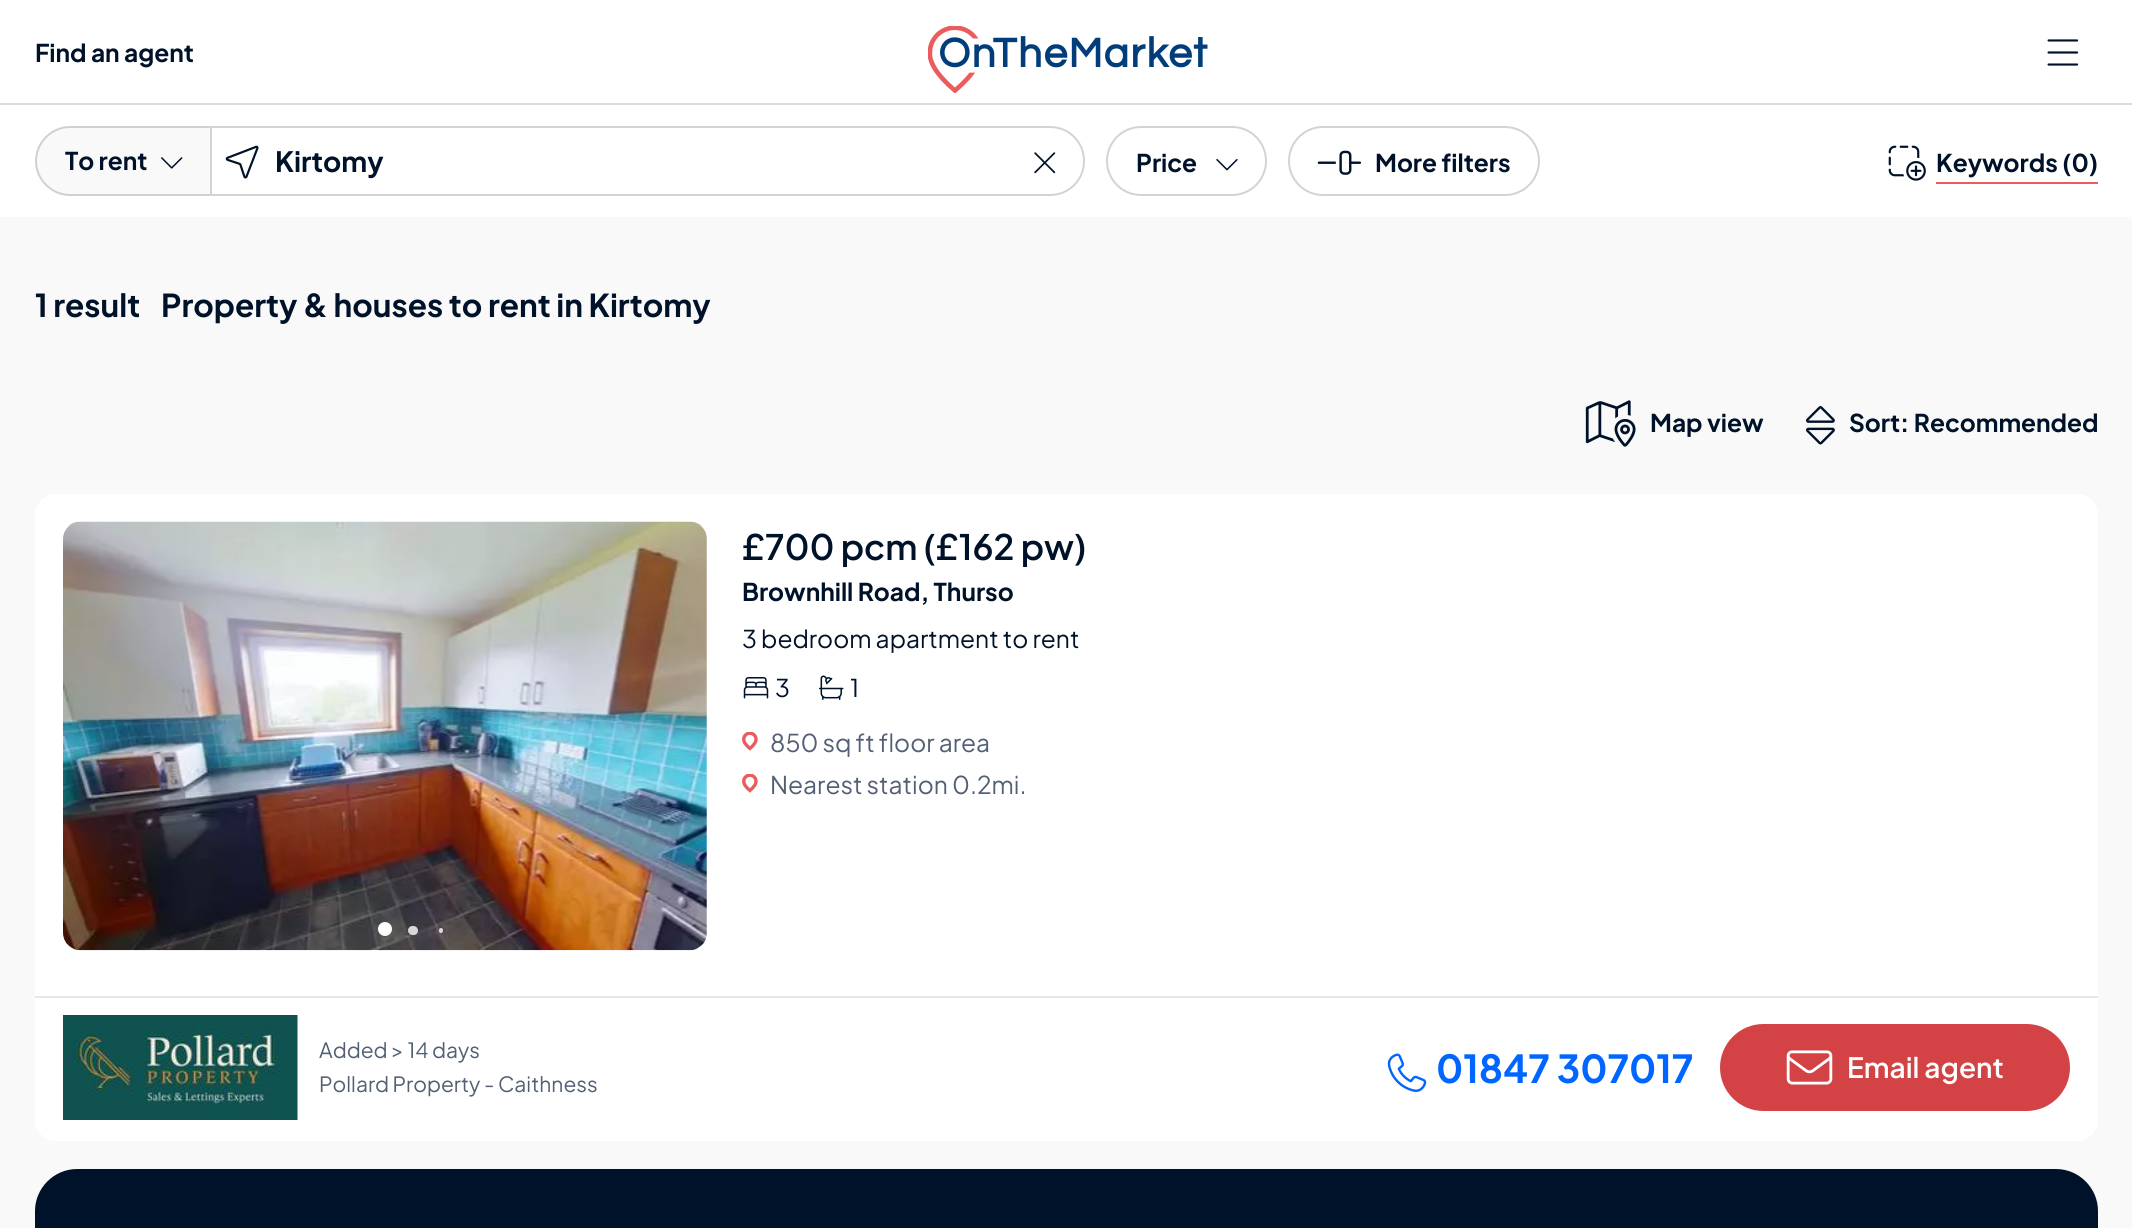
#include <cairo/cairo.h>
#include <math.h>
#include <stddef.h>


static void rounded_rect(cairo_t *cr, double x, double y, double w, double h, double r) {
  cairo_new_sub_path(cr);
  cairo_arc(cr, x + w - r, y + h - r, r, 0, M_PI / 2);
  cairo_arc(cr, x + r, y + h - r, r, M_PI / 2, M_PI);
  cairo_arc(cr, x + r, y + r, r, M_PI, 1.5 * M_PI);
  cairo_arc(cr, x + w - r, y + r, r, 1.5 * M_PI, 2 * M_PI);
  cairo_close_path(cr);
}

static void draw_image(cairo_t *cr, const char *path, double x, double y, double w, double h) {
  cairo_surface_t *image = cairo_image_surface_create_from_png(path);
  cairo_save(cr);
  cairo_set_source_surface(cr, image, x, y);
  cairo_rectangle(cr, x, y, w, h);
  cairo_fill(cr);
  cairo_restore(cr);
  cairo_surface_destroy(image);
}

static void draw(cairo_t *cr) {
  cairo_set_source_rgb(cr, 1, 1, 1);
  cairo_paint(cr);
  cairo_set_source_rgb(cr, 217 / 255.0, 220 / 255.0, 225 / 255.0);
  cairo_rectangle(cr, 0, 103, 2132, 2);
  cairo_fill(cr);
  draw_image(cr, "images/1.png", 928, 26, 280, 67);
  draw_image(cr, "images/2.png", 2047, 39, 32, 27);
  cairo_set_source_rgb(cr, 250 / 255.0, 249 / 255.0, 249 / 255.0);
  cairo_new_path(cr);
  cairo_move_to(cr, 70, 126);
  cairo_line_to(cr, 210, 126);
  cairo_line_to(cr, 210, 196);
  cairo_line_to(cr, 70, 196);
  cairo_curve_to(cr, 50.5, 196, 35, 180.5, 35, 161);
  cairo_curve_to(cr, 35, 141.5, 50.5, 126, 70, 126);
  cairo_close_path(cr);
  cairo_fill(cr);
  cairo_set_source_rgba(cr, 161 / 255.0, 168 / 255.0, 179 / 255.0, 0.5);
  cairo_set_fill_rule(cr, CAIRO_FILL_RULE_EVEN_ODD);
  cairo_new_path(cr);
  cairo_move_to(cr, 70, 126);
  cairo_line_to(cr, 210, 126);
  cairo_line_to(cr, 210, 196);
  cairo_line_to(cr, 70, 196);
  cairo_curve_to(cr, 51, 196, 35, 180, 35, 161);
  cairo_curve_to(cr, 35, 142, 51, 126, 70, 126);
  cairo_close_path(cr);
  cairo_move_to(cr, 70, 128);
  cairo_line_to(cr, 210, 128);
  cairo_line_to(cr, 210, 194);
  cairo_line_to(cr, 70, 194);
  cairo_curve_to(cr, 52, 194, 37, 179, 37, 161);
  cairo_curve_to(cr, 37, 143, 52, 128, 70, 128);
  cairo_close_path(cr);
  cairo_fill(cr);
  draw_image(cr, "images/3.png", 161, 157, 22, 12);
  cairo_new_path(cr);
  cairo_move_to(cr, 211, 127);
  cairo_line_to(cr, 1050, 127);
  cairo_curve_to(cr, 1069, 127, 1084, 142, 1084, 161);
  cairo_curve_to(cr, 1084, 180, 1069, 195, 1050, 195);
  cairo_line_to(cr, 211, 195);
  cairo_close_path(cr);
  cairo_set_source_rgb(cr, 208 / 255.0, 212 / 255.0, 217 / 255.0);
  cairo_stroke(cr);
  draw_image(cr, "images/4.png", 225, 145, 34, 34);
  draw_image(cr, "images/5.png", 1034, 152, 22, 22);
  rounded_rect(cr, 1107, 127, 159, 68, 34);
  cairo_stroke(cr);
  draw_image(cr, "images/6.png", 1216, 159, 22, 12);
  rounded_rect(cr, 1289, 127, 250, 68, 34);
  cairo_stroke(cr);
  draw_image(cr, "images/7.png", 1317, 150, 44, 25);
  draw_image(cr, "images/8.png", 1888, 145, 38, 36);
  cairo_set_source_rgb(cr, 235 / 255.0, 92 / 255.0, 95 / 255.0);
  cairo_rectangle(cr, 1936, 182, 162, 2);
  cairo_fill(cr);
  cairo_set_source_rgb(cr, 250 / 255.0, 249 / 255.0, 249 / 255.0);
  cairo_rectangle(cr, 0, 217, 2132, 1011);
  cairo_fill(cr);
  draw_image(cr, "images/9.png", 1585, 400, 51, 47);
  draw_image(cr, "images/10.png", 1806, 406, 29, 39);
  cairo_set_source_rgb(cr, 1, 1, 1);
  rounded_rect(cr, 35, 494, 2063, 647, 21);
  cairo_fill(cr);
  draw_image(cr, "images/11.png", 63, 521, 644, 430);
  cairo_arc(cr, 385, 929, 7, 0, 2 * M_PI);
  cairo_fill(cr);
  cairo_set_source_rgba(cr, 1, 1, 1, 0.8);
  rounded_rect(cr, 408, 926, 10, 9, 4.5);
  cairo_fill(cr);
  rounded_rect(cr, 439, 928, 4, 5, 2);
  cairo_fill(cr);
  draw_image(cr, "images/12.png", 743, 677, 26, 22);
  draw_image(cr, "images/13.png", 819, 675, 25, 25);
  draw_image(cr, "images/14.png", 742, 732, 16, 19);
  draw_image(cr, "images/14.png", 742, 774, 16, 19);
  cairo_set_source_rgb(cr, 229 / 255.0, 231 / 255.0, 235 / 255.0);
  cairo_rectangle(cr, 35, 996, 2063, 2);
  cairo_fill(cr);
  draw_image(cr, "images/15.png", 63, 1015, 235, 105);
  draw_image(cr, "images/16.png", 1387, 1053, 40, 39);
  cairo_set_source_rgb(cr, 211 / 255.0, 67 / 255.0, 70 / 255.0);
  rounded_rect(cr, 1722, 1026, 346, 83, 41.5);
  cairo_fill_preserve(cr);
  cairo_set_line_width(cr, 4);
  cairo_stroke(cr);
  draw_image(cr, "images/17.png", 1786, 1050, 47, 35);
  cairo_set_source_rgb(cr, 0, 18 / 255.0, 41 / 255.0);
  cairo_new_path(cr);
  cairo_move_to(cr, 77, 1169);
  cairo_line_to(cr, 2056, 1169);
  cairo_curve_to(cr, 2079, 1169, 2098, 1188, 2098, 1211);
  cairo_line_to(cr, 2098, 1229);
  cairo_line_to(cr, 35, 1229);
  cairo_line_to(cr, 35, 1211);
  cairo_curve_to(cr, 35, 1188, 54, 1169, 77, 1169);
  cairo_close_path(cr);
  cairo_fill(cr);
  cairo_select_font_face(cr, "Plus Jakarta Sans", CAIRO_FONT_SLANT_NORMAL, CAIRO_FONT_WEIGHT_BOLD);
  cairo_set_font_size(cr, 24.5);
  cairo_move_to(cr, 35, 62);
  cairo_show_text(cr, "Find an agent");
  cairo_move_to(cr, 65, 170);
  cairo_show_text(cr, "To rent");
  cairo_set_font_size(cr, 28);
  cairo_move_to(cr, 275, 172);
  cairo_show_text(cr, "Kirtomy");
  cairo_set_font_size(cr, 24.5);
  cairo_move_to(cr, 1136, 172);
  cairo_show_text(cr, "Price");
  cairo_move_to(cr, 1375, 172);
  cairo_show_text(cr, "More filters");
  cairo_move_to(cr, 1936, 172);
  cairo_show_text(cr, "Keywords (0)");
  cairo_set_font_size(cr, 31.5);
  cairo_move_to(cr, 35, 317);
  cairo_show_text(cr, "1 result");
  cairo_move_to(cr, 161, 317);
  cairo_show_text(cr, "Property & houses to rent in Kirtomy");
  cairo_set_font_size(cr, 24.5);
  cairo_move_to(cr, 1650, 432);
  cairo_show_text(cr, "Map view");
  cairo_move_to(cr, 1849, 432);
  cairo_show_text(cr, "Sort: Recommended");
  cairo_select_font_face(cr, "Plus Jakarta Sans SemiBold", CAIRO_FONT_SLANT_NORMAL, CAIRO_FONT_WEIGHT_NORMAL);
  cairo_set_font_size(cr, 35);
  cairo_move_to(cr, 742, 560);
  cairo_show_text(cr, "£700 pcm (£162 pw)");
  cairo_select_font_face(cr, "Plus Jakarta Sans", CAIRO_FONT_SLANT_NORMAL, CAIRO_FONT_WEIGHT_BOLD);
  cairo_set_font_size(cr, 24.5);
  cairo_move_to(cr, 742, 601);
  cairo_show_text(cr, "Brownhill Road, Thurso");
  cairo_select_font_face(cr, "Plus Jakarta Sans", CAIRO_FONT_SLANT_NORMAL, CAIRO_FONT_WEIGHT_NORMAL);
  cairo_move_to(cr, 742, 648);
  cairo_show_text(cr, "3 bedroom apartment to rent");
  cairo_move_to(cr, 775, 697);
  cairo_show_text(cr, "3");
  cairo_move_to(cr, 850, 697);
  cairo_show_text(cr, "1");
  cairo_set_source_rgb(cr, 82 / 255.0, 95 / 255.0, 116 / 255.0);
  cairo_move_to(cr, 770, 752);
  cairo_show_text(cr, "850 sq ft floor area");
  cairo_move_to(cr, 770, 794);
  cairo_show_text(cr, "Nearest station 0.2mi.");
  cairo_set_font_size(cr, 21);
  cairo_move_to(cr, 319, 1058);
  cairo_show_text(cr, "Added > 14 days");
  cairo_move_to(cr, 319, 1092);
  cairo_show_text(cr, "Pollard Property - Caithness");
  cairo_select_font_face(cr, "Plus Jakarta Sans", CAIRO_FONT_SLANT_NORMAL, CAIRO_FONT_WEIGHT_BOLD);
  cairo_set_font_size(cr, 38.5);
  cairo_set_source_rgb(cr, 0, 102 / 255.0, 1);
  cairo_move_to(cr, 1436, 1083);
  cairo_show_text(cr, "01847 307017");
  cairo_select_font_face(cr, "Plus Jakarta Sans SemiBold", CAIRO_FONT_SLANT_NORMAL, CAIRO_FONT_WEIGHT_NORMAL);
  cairo_set_font_size(cr, 28);
  cairo_set_source_rgb(cr, 1, 1, 1);
  cairo_move_to(cr, 1847, 1078);
  cairo_show_text(cr, "Email agent");
}

int main(void) {
  cairo_surface_t *surface = cairo_image_surface_create(CAIRO_FORMAT_RGB24, 2132, 1228);
  cairo_t *cr = cairo_create(surface);
  cairo_font_options_t *options = cairo_font_options_create();
  cairo_font_options_set_hint_metrics(options, CAIRO_HINT_METRICS_OFF);
  cairo_font_options_set_hint_style(options, CAIRO_HINT_STYLE_NONE);
  cairo_set_font_options(cr, options);
  cairo_set_miter_limit(cr, 4);
  draw(cr);
  cairo_surface_write_to_png(surface, "out.png");
  cairo_font_options_destroy(options);
  cairo_destroy(cr);
  cairo_surface_destroy(surface);
  return 0;
}
